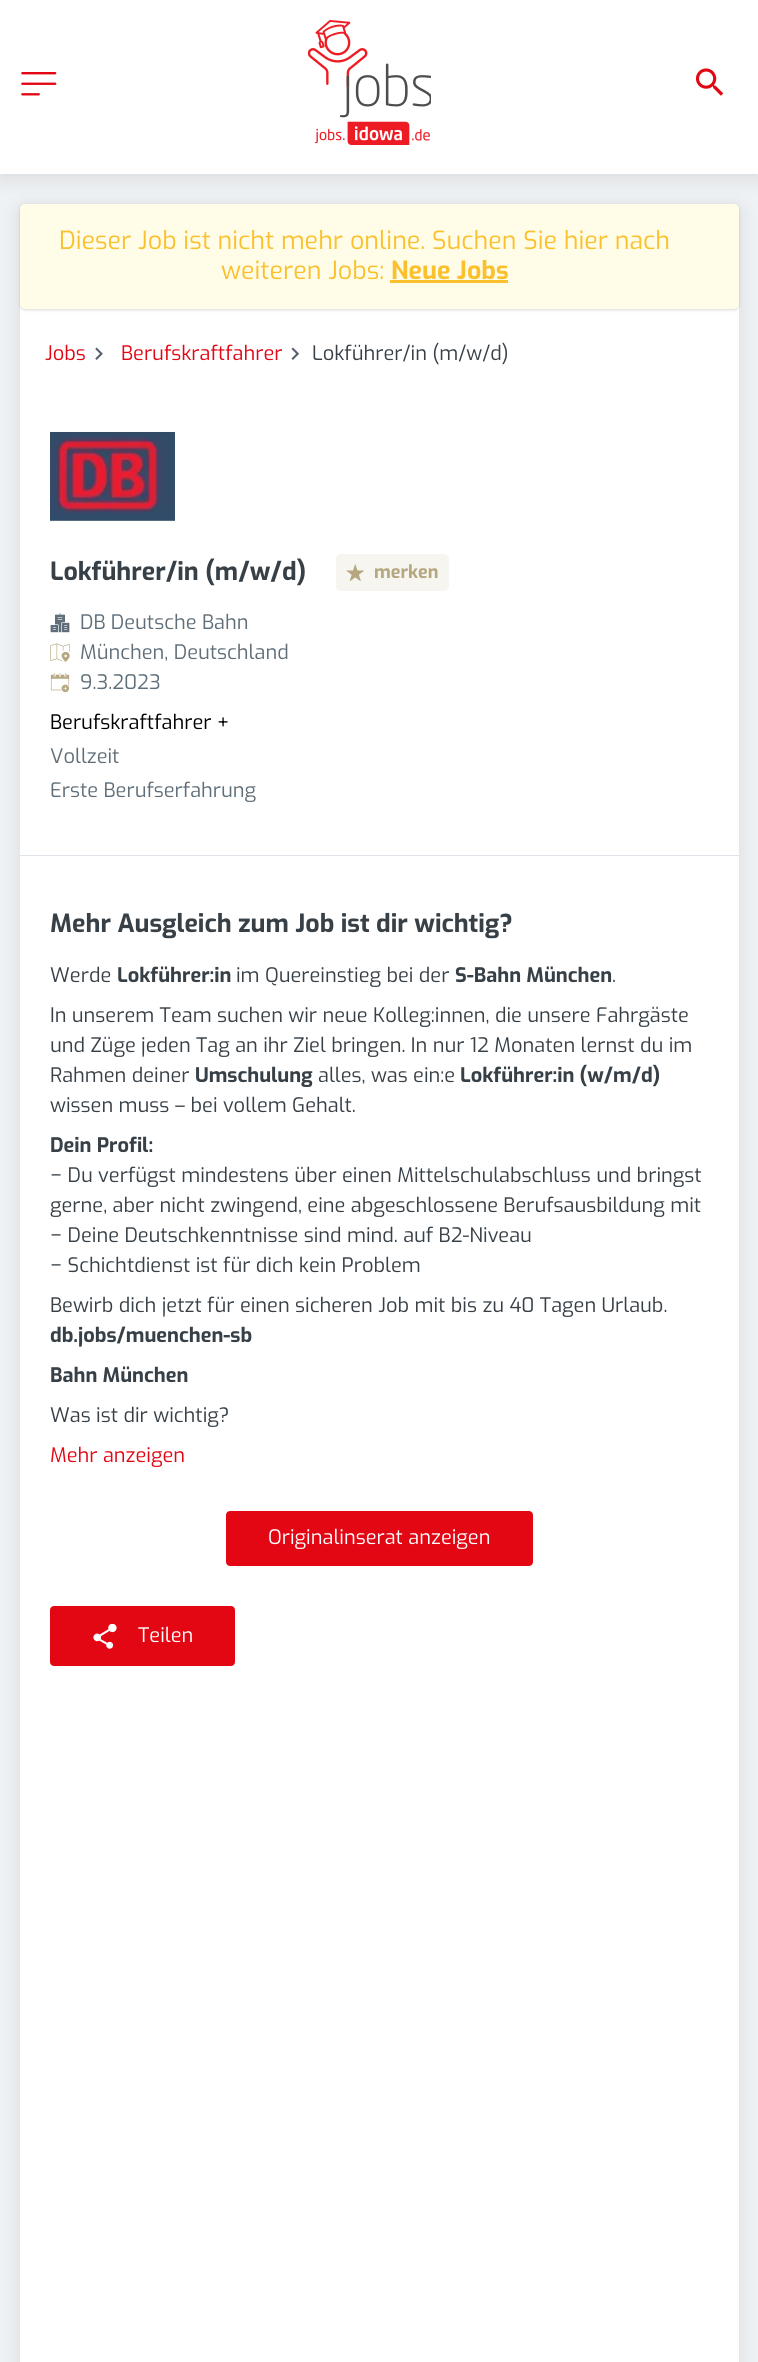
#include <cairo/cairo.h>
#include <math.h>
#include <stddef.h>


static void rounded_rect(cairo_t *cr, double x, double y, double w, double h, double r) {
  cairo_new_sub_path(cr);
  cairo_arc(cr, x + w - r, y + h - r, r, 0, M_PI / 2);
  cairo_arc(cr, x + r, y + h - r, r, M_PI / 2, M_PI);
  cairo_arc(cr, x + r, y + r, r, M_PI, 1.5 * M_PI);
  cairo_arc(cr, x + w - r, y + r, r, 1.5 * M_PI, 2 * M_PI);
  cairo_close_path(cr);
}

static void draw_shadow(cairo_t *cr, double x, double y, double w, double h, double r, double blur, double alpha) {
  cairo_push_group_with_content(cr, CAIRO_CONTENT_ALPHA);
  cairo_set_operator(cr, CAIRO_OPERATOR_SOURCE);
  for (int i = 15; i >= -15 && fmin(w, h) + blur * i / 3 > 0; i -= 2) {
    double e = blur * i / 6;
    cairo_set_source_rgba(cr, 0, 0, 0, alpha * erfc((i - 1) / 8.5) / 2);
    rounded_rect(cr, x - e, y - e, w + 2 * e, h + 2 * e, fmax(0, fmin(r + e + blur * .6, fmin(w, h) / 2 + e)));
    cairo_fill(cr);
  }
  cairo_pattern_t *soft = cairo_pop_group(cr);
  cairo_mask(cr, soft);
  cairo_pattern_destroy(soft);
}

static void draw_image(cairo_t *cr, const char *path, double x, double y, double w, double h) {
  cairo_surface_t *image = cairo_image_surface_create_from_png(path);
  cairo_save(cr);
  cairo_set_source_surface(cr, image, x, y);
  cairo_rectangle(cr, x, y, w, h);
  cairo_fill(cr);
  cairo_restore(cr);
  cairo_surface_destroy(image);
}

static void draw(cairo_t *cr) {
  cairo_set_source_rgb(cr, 239 / 255.0, 242 / 255.0, 244 / 255.0);
  cairo_paint(cr);
  cairo_set_source_rgb(cr, 0, 0, 0);
  draw_shadow(cr, 0, 4, 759, 174, 0, 9.5, 0.1);
  cairo_set_source_rgb(cr, 1, 1, 1);
  cairo_rectangle(cr, 0, 0, 758, 174);
  cairo_fill(cr);
  draw_image(cr, "images/1.png", 21, 72, 36, 24);
  draw_image(cr, "images/2.png", 308, 20, 123, 125);
  draw_image(cr, "images/3.png", 695, 68, 29, 28);
  cairo_set_source_rgb(cr, 0, 0, 0);
  draw_shadow(cr, 20, 208, 719, 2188, 5, 9.5, 0.1);
  cairo_set_source_rgb(cr, 1, 1, 1);
  rounded_rect(cr, 20, 204, 719, 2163, 5);
  cairo_fill(cr);
  cairo_set_source_rgb(cr, 0, 0, 0);
  draw_shadow(cr, 20, 205, 719, 105, 5, 1, 0.06);
  draw_shadow(cr, 20, 205, 719, 105, 5, 2, 0.1);
  cairo_set_source_rgb(cr, 1, 253 / 255.0, 231 / 255.0);
  rounded_rect(cr, 21.5, 205.5, 716, 102, 3.5);
  cairo_fill_preserve(cr);
  cairo_set_line_width(cr, 3);
  cairo_stroke(cr);
  cairo_set_source_rgb(cr, 251 / 255.0, 192 / 255.0, 45 / 255.0);
  cairo_rectangle(cr, 390, 280, 118, 3);
  cairo_fill(cr);
  draw_image(cr, "images/4.png", 95, 347, 8, 13);
  draw_image(cr, "images/5.png", 291, 347, 9, 13);
  cairo_set_source_rgb(cr, 223 / 255.0, 228 / 255.0, 234 / 255.0);
  cairo_rectangle(cr, 20, 855, 719, 1);
  cairo_fill(cr);
  draw_image(cr, "images/6.png", 50, 431, 125, 91);
  cairo_set_source_rgb(cr, 246 / 255.0, 245 / 255.0, 240 / 255.0);
  rounded_rect(cr, 336, 554, 113, 37, 5);
  cairo_fill(cr);
  draw_image(cr, "images/7.png", 346, 564, 18, 17);
  draw_image(cr, "images/8.png", 50, 613, 20, 20);
  draw_image(cr, "images/9.png", 50, 643, 20, 19);
  draw_image(cr, "images/10.png", 50, 673, 20, 20);
  cairo_set_source_rgb(cr, 227 / 255.0, 6 / 255.0, 19 / 255.0);
  rounded_rect(cr, 227.5, 1512.5, 304, 52, 2.5);
  cairo_fill_preserve(cr);
  cairo_stroke(cr);
  rounded_rect(cr, 51.5, 1607.5, 182, 57, 2.5);
  cairo_fill_preserve(cr);
  cairo_stroke(cr);
  draw_image(cr, "images/11.png", 93, 1624, 24, 25);
  cairo_select_font_face(cr, "Exo", CAIRO_FONT_SLANT_NORMAL, CAIRO_FONT_WEIGHT_NORMAL);
  cairo_set_font_size(cr, 25);
  cairo_set_source_rgb(cr, 251 / 255.0, 192 / 255.0, 45 / 255.0);
  cairo_move_to(cr, 59, 249);
  cairo_show_text(cr, "Dieser Job ist nicht mehr online. Suchen Sie hier nach");
  cairo_move_to(cr, 221, 279);
  cairo_show_text(cr, "weiteren Jobs:");
  cairo_select_font_face(cr, "Exo", CAIRO_FONT_SLANT_NORMAL, CAIRO_FONT_WEIGHT_BOLD);
  cairo_move_to(cr, 391, 279);
  cairo_show_text(cr, "Neue Jobs");
  cairo_select_font_face(cr, "Exo", CAIRO_FONT_SLANT_NORMAL, CAIRO_FONT_WEIGHT_NORMAL);
  cairo_set_font_size(cr, 20);
  cairo_set_source_rgb(cr, 227 / 255.0, 6 / 255.0, 19 / 255.0);
  cairo_move_to(cr, 45, 360);
  cairo_show_text(cr, "Jobs");
  cairo_move_to(cr, 121, 360);
  cairo_show_text(cr, "Berufskraftfahrer");
  cairo_set_source_rgb(cr, 55 / 255.0, 64 / 255.0, 71 / 255.0);
  cairo_move_to(cr, 312, 360);
  cairo_show_text(cr, "Lokführer/in (m/w/d)");
  cairo_select_font_face(cr, "Exo", CAIRO_FONT_SLANT_NORMAL, CAIRO_FONT_WEIGHT_BOLD);
  cairo_set_font_size(cr, 25);
  cairo_move_to(cr, 50, 580);
  cairo_show_text(cr, "Lokführer/in (m/w/d)");
  cairo_set_font_size(cr, 18);
  cairo_set_source_rgb(cr, 181 / 255.0, 167 / 255.0, 127 / 255.0);
  cairo_move_to(cr, 374, 578);
  cairo_show_text(cr, "merken");
  cairo_select_font_face(cr, "Exo", CAIRO_FONT_SLANT_NORMAL, CAIRO_FONT_WEIGHT_NORMAL);
  cairo_set_font_size(cr, 20);
  cairo_set_source_rgb(cr, 95 / 255.0, 110 / 255.0, 120 / 255.0);
  cairo_move_to(cr, 80, 629);
  cairo_show_text(cr, "DB Deutsche Bahn");
  cairo_move_to(cr, 80, 659);
  cairo_show_text(cr, "München, Deutschland");
  cairo_move_to(cr, 80, 689);
  cairo_show_text(cr, "9.3.2023");
  cairo_set_source_rgb(cr, 0, 0, 0);
  cairo_move_to(cr, 50, 729);
  cairo_show_text(cr, "Berufskraftfahrer +");
  cairo_set_source_rgb(cr, 95 / 255.0, 110 / 255.0, 120 / 255.0);
  cairo_move_to(cr, 50, 763);
  cairo_show_text(cr, "Vollzeit");
  cairo_move_to(cr, 50, 797);
  cairo_show_text(cr, "Erste Berufserfahrung");
  cairo_select_font_face(cr, "Exo", CAIRO_FONT_SLANT_NORMAL, CAIRO_FONT_WEIGHT_BOLD);
  cairo_set_font_size(cr, 25);
  cairo_set_source_rgb(cr, 55 / 255.0, 64 / 255.0, 71 / 255.0);
  cairo_move_to(cr, 50, 932);
  cairo_show_text(cr, "Mehr Ausgleich zum Job ist dir wichtig?");
  cairo_select_font_face(cr, "Exo", CAIRO_FONT_SLANT_NORMAL, CAIRO_FONT_WEIGHT_NORMAL);
  cairo_set_font_size(cr, 20);
  cairo_move_to(cr, 50, 982);
  cairo_show_text(cr, "Werde");
  cairo_select_font_face(cr, "Exo", CAIRO_FONT_SLANT_NORMAL, CAIRO_FONT_WEIGHT_BOLD);
  cairo_move_to(cr, 117, 982);
  cairo_show_text(cr, "Lokführer:in");
  cairo_select_font_face(cr, "Exo", CAIRO_FONT_SLANT_NORMAL, CAIRO_FONT_WEIGHT_NORMAL);
  cairo_move_to(cr, 236, 982);
  cairo_show_text(cr, "im Quereinstieg bei der");
  cairo_select_font_face(cr, "Exo", CAIRO_FONT_SLANT_NORMAL, CAIRO_FONT_WEIGHT_BOLD);
  cairo_move_to(cr, 455, 982);
  cairo_show_text(cr, "S-Bahn München");
  cairo_select_font_face(cr, "Exo", CAIRO_FONT_SLANT_NORMAL, CAIRO_FONT_WEIGHT_NORMAL);
  cairo_move_to(cr, 612, 982);
  cairo_show_text(cr, ".");
  cairo_move_to(cr, 50, 1022);
  cairo_show_text(cr, "In unserem Team suchen wir neue Kolleg:innen, die unsere Fahrgäste");
  cairo_move_to(cr, 50, 1052);
  cairo_show_text(cr, "und Züge jeden Tag an ihr Ziel bringen. In nur 12 Monaten lernst du im");
  cairo_move_to(cr, 50, 1082);
  cairo_show_text(cr, "Rahmen deiner");
  cairo_select_font_face(cr, "Exo", CAIRO_FONT_SLANT_NORMAL, CAIRO_FONT_WEIGHT_BOLD);
  cairo_move_to(cr, 195, 1082);
  cairo_show_text(cr, "Umschulung");
  cairo_select_font_face(cr, "Exo", CAIRO_FONT_SLANT_NORMAL, CAIRO_FONT_WEIGHT_NORMAL);
  cairo_move_to(cr, 318, 1082);
  cairo_show_text(cr, "alles, was ein:e");
  cairo_select_font_face(cr, "Exo", CAIRO_FONT_SLANT_NORMAL, CAIRO_FONT_WEIGHT_BOLD);
  cairo_move_to(cr, 460, 1082);
  cairo_show_text(cr, "Lokführer:in (w/m/d)");
  cairo_select_font_face(cr, "Exo", CAIRO_FONT_SLANT_NORMAL, CAIRO_FONT_WEIGHT_NORMAL);
  cairo_move_to(cr, 50, 1112);
  cairo_show_text(cr, "wissen muss – bei vollem Gehalt.");
  cairo_select_font_face(cr, "Exo", CAIRO_FONT_SLANT_NORMAL, CAIRO_FONT_WEIGHT_BOLD);
  cairo_move_to(cr, 50, 1152);
  cairo_show_text(cr, "Dein Profil:");
  cairo_select_font_face(cr, "Exo", CAIRO_FONT_SLANT_NORMAL, CAIRO_FONT_WEIGHT_NORMAL);
  cairo_move_to(cr, 50, 1182);
  cairo_show_text(cr, "− Du verfügst mindestens über einen Mittelschulabschluss und bringst");
  cairo_move_to(cr, 50, 1212);
  cairo_show_text(cr, "gerne, aber nicht zwingend, eine abgeschlossene Berufsausbildung mit");
  cairo_move_to(cr, 50, 1242);
  cairo_show_text(cr, "− Deine Deutschkenntnisse sind mind. auf B2-Niveau");
  cairo_move_to(cr, 50, 1272);
  cairo_show_text(cr, "− Schichtdienst ist für dich kein Problem");
  cairo_move_to(cr, 50, 1312);
  cairo_show_text(cr, "Bewirb dich jetzt für einen sicheren Job mit bis zu 40 Tagen Urlaub.");
  cairo_select_font_face(cr, "Exo", CAIRO_FONT_SLANT_NORMAL, CAIRO_FONT_WEIGHT_BOLD);
  cairo_move_to(cr, 50, 1342);
  cairo_show_text(cr, "db.jobs/muenchen-sb");
  cairo_move_to(cr, 50, 1382);
  cairo_show_text(cr, "Bahn München");
  cairo_select_font_face(cr, "Exo", CAIRO_FONT_SLANT_NORMAL, CAIRO_FONT_WEIGHT_NORMAL);
  cairo_move_to(cr, 50, 1422);
  cairo_show_text(cr, "Was ist dir wichtig?");
  cairo_set_source_rgb(cr, 227 / 255.0, 6 / 255.0, 19 / 255.0);
  cairo_move_to(cr, 50, 1462);
  cairo_show_text(cr, "Mehr anzeigen");
  cairo_set_source_rgb(cr, 1, 1, 1);
  cairo_move_to(cr, 268, 1544);
  cairo_show_text(cr, "Originalinserat anzeigen");
  cairo_move_to(cr, 138, 1642);
  cairo_show_text(cr, "Teilen");
}

int main(void) {
  cairo_surface_t *surface = cairo_image_surface_create(CAIRO_FORMAT_RGB24, 758, 2362);
  cairo_t *cr = cairo_create(surface);
  cairo_font_options_t *options = cairo_font_options_create();
  cairo_font_options_set_hint_metrics(options, CAIRO_HINT_METRICS_OFF);
  cairo_font_options_set_hint_style(options, CAIRO_HINT_STYLE_NONE);
  cairo_set_font_options(cr, options);
  cairo_set_miter_limit(cr, 4);
  draw(cr);
  cairo_surface_write_to_png(surface, "out.png");
  cairo_font_options_destroy(options);
  cairo_destroy(cr);
  cairo_surface_destroy(surface);
  return 0;
}
